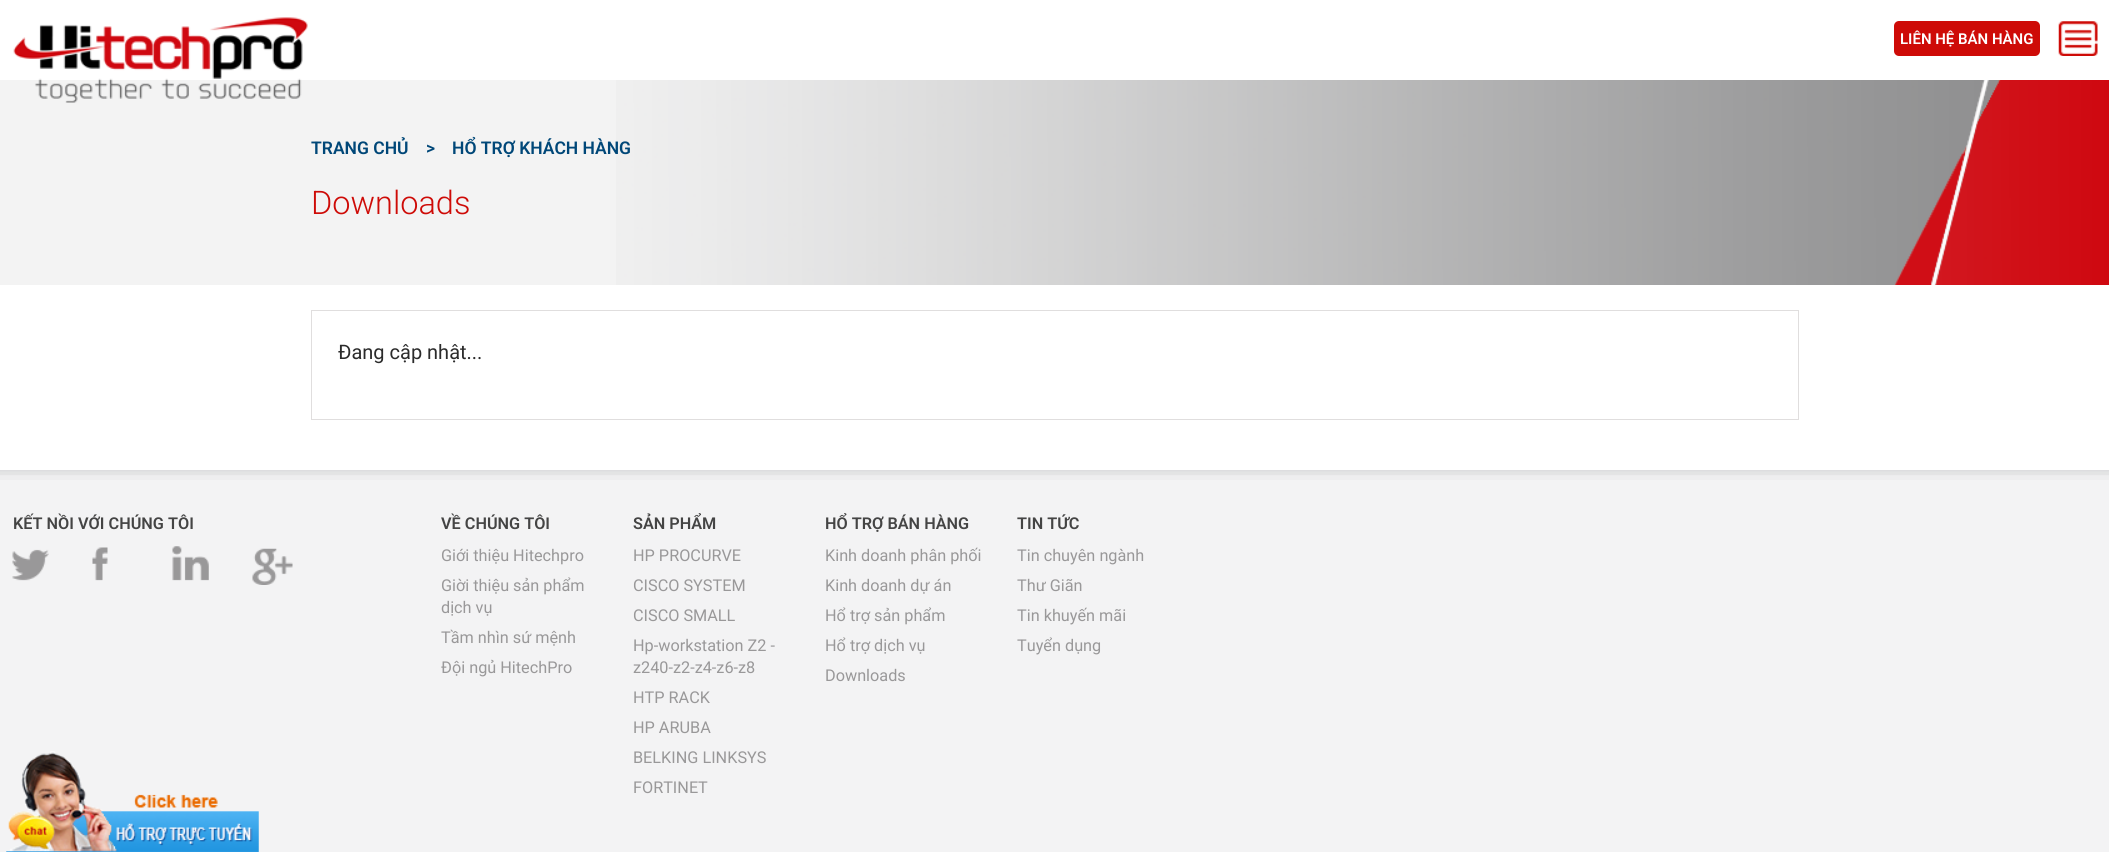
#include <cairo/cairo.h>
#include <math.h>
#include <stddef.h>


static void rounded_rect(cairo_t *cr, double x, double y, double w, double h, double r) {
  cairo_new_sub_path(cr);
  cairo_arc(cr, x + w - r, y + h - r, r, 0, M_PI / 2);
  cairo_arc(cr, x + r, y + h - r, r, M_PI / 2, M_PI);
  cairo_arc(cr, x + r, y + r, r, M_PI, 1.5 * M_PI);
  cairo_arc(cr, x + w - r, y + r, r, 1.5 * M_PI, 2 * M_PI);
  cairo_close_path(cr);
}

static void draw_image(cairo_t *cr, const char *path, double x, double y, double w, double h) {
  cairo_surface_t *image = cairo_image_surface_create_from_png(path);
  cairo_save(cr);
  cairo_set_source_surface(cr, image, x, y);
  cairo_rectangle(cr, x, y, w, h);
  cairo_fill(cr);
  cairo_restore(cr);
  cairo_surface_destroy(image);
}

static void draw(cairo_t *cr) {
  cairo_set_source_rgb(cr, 1, 1, 1);
  cairo_paint(cr);
  cairo_set_source_rgb(cr, 243 / 255.0, 243 / 255.0, 243 / 255.0);
  cairo_rectangle(cr, 0, 80, 616, 205);
  cairo_fill(cr);
  draw_image(cr, "images/1.png", 13, 17, 295, 86);
  cairo_set_source_rgb(cr, 206 / 255.0, 11 / 255.0, 7 / 255.0);
  rounded_rect(cr, 1894, 21, 146, 35, 5);
  cairo_fill(cr);
  draw_image(cr, "images/2.png", 2058, 21, 40, 35);
  draw_image(cr, "images/3.png", 616, 80, 1493, 205);
  cairo_rectangle(cr, 311.5, 310.5, 1487, 109);
  cairo_set_source_rgb(cr, 224 / 255.0, 222 / 255.0, 222 / 255.0);
  cairo_set_line_width(cr, 1);
  cairo_stroke(cr);
  cairo_set_source_rgb(cr, 243 / 255.0, 243 / 255.0, 244 / 255.0);
  cairo_rectangle(cr, 0, 470, 2109, 382);
  cairo_fill(cr);
  draw_image(cr, "images/4.png", 0, 470, 2109, 10);
  draw_image(cr, "images/5.png", 12, 549, 37, 32);
  draw_image(cr, "images/6.png", 92, 547, 16, 34);
  draw_image(cr, "images/7.png", 172, 546, 37, 35);
  draw_image(cr, "images/8.png", 252, 548, 41, 37);
  draw_image(cr, "images/9.png", 6, 751, 253, 101);
  cairo_select_font_face(cr, "Roboto SemiBold", CAIRO_FONT_SLANT_NORMAL, CAIRO_FONT_WEIGHT_NORMAL);
  cairo_set_font_size(cr, 15);
  cairo_set_source_rgb(cr, 1, 1, 1);
  cairo_move_to(cr, 1900, 44);
  cairo_show_text(cr, "LIÊN HỆ BÁN HÀNG");
  cairo_set_font_size(cr, 17.5);
  cairo_set_source_rgb(cr, 0, 71 / 255.0, 120 / 255.0);
  cairo_move_to(cr, 311, 154);
  cairo_show_text(cr, "TRANG CHỦ");
  cairo_move_to(cr, 426, 154);
  cairo_show_text(cr, ">");
  cairo_move_to(cr, 452, 154);
  cairo_show_text(cr, "HỔ TRỢ KHÁCH HÀNG");
  cairo_select_font_face(cr, "Roboto Light", CAIRO_FONT_SLANT_NORMAL, CAIRO_FONT_WEIGHT_NORMAL);
  cairo_set_font_size(cr, 32.5);
  cairo_set_source_rgb(cr, 206 / 255.0, 11 / 255.0, 7 / 255.0);
  cairo_move_to(cr, 311, 214);
  cairo_show_text(cr, "Downloads");
  cairo_select_font_face(cr, "Roboto", CAIRO_FONT_SLANT_NORMAL, CAIRO_FONT_WEIGHT_NORMAL);
  cairo_set_font_size(cr, 20);
  cairo_set_source_rgb(cr, 43 / 255.0, 43 / 255.0, 43 / 255.0);
  cairo_move_to(cr, 338, 359);
  cairo_show_text(cr, "Đang cập nhật...");
  cairo_select_font_face(cr, "Roboto SemiBold", CAIRO_FONT_SLANT_NORMAL, CAIRO_FONT_WEIGHT_NORMAL);
  cairo_set_font_size(cr, 16.25);
  cairo_set_source_rgb(cr, 68 / 255.0, 68 / 255.0, 68 / 255.0);
  cairo_move_to(cr, 13, 529);
  cairo_show_text(cr, "KẾT NỒI VỚI CHÚNG TÔI");
  cairo_move_to(cr, 441, 529);
  cairo_show_text(cr, "VỀ CHÚNG TÔI");
  cairo_select_font_face(cr, "Roboto", CAIRO_FONT_SLANT_NORMAL, CAIRO_FONT_WEIGHT_NORMAL);
  cairo_set_source_rgb(cr, 153 / 255.0, 152 / 255.0, 153 / 255.0);
  cairo_move_to(cr, 441, 561);
  cairo_show_text(cr, "Giới thiệu Hitechpro");
  cairo_move_to(cr, 441, 591);
  cairo_show_text(cr, "Giời thiệu sản phẩm");
  cairo_move_to(cr, 441, 613);
  cairo_show_text(cr, "dịch vụ");
  cairo_move_to(cr, 441, 643);
  cairo_show_text(cr, "Tầm nhìn sứ mệnh");
  cairo_move_to(cr, 441, 673);
  cairo_show_text(cr, "Đội ngủ HitechPro");
  cairo_select_font_face(cr, "Roboto SemiBold", CAIRO_FONT_SLANT_NORMAL, CAIRO_FONT_WEIGHT_NORMAL);
  cairo_set_source_rgb(cr, 68 / 255.0, 68 / 255.0, 68 / 255.0);
  cairo_move_to(cr, 633, 529);
  cairo_show_text(cr, "SẢN PHẨM");
  cairo_select_font_face(cr, "Roboto", CAIRO_FONT_SLANT_NORMAL, CAIRO_FONT_WEIGHT_NORMAL);
  cairo_set_source_rgb(cr, 153 / 255.0, 152 / 255.0, 153 / 255.0);
  cairo_move_to(cr, 633, 561);
  cairo_show_text(cr, "HP PROCURVE");
  cairo_move_to(cr, 633, 591);
  cairo_show_text(cr, "CISCO SYSTEM");
  cairo_move_to(cr, 633, 621);
  cairo_show_text(cr, "CISCO SMALL");
  cairo_move_to(cr, 633, 651);
  cairo_show_text(cr, "Hp-workstation Z2 -");
  cairo_move_to(cr, 633, 673);
  cairo_show_text(cr, "z240-z2-z4-z6-z8");
  cairo_move_to(cr, 633, 703);
  cairo_show_text(cr, "HTP RACK");
  cairo_move_to(cr, 633, 733);
  cairo_show_text(cr, "HP ARUBA");
  cairo_move_to(cr, 633, 763);
  cairo_show_text(cr, "BELKING LINKSYS");
  cairo_move_to(cr, 633, 793);
  cairo_show_text(cr, "FORTINET");
  cairo_select_font_face(cr, "Roboto SemiBold", CAIRO_FONT_SLANT_NORMAL, CAIRO_FONT_WEIGHT_NORMAL);
  cairo_set_source_rgb(cr, 68 / 255.0, 68 / 255.0, 68 / 255.0);
  cairo_move_to(cr, 825, 529);
  cairo_show_text(cr, "HỔ TRỢ BÁN HÀNG");
  cairo_select_font_face(cr, "Roboto", CAIRO_FONT_SLANT_NORMAL, CAIRO_FONT_WEIGHT_NORMAL);
  cairo_set_source_rgb(cr, 153 / 255.0, 152 / 255.0, 153 / 255.0);
  cairo_move_to(cr, 825, 561);
  cairo_show_text(cr, "Kinh doanh phân phối");
  cairo_move_to(cr, 825, 591);
  cairo_show_text(cr, "Kinh doanh dự án");
  cairo_move_to(cr, 825, 621);
  cairo_show_text(cr, "Hổ trợ sản phẩm");
  cairo_move_to(cr, 825, 651);
  cairo_show_text(cr, "Hổ trợ dịch vụ");
  cairo_move_to(cr, 825, 681);
  cairo_show_text(cr, "Downloads");
  cairo_select_font_face(cr, "Roboto SemiBold", CAIRO_FONT_SLANT_NORMAL, CAIRO_FONT_WEIGHT_NORMAL);
  cairo_set_source_rgb(cr, 68 / 255.0, 68 / 255.0, 68 / 255.0);
  cairo_move_to(cr, 1017, 529);
  cairo_show_text(cr, "TIN TỨC");
  cairo_select_font_face(cr, "Roboto", CAIRO_FONT_SLANT_NORMAL, CAIRO_FONT_WEIGHT_NORMAL);
  cairo_set_source_rgb(cr, 153 / 255.0, 152 / 255.0, 153 / 255.0);
  cairo_move_to(cr, 1017, 561);
  cairo_show_text(cr, "Tin chuyên ngành");
  cairo_move_to(cr, 1017, 591);
  cairo_show_text(cr, "Thư Giãn");
  cairo_move_to(cr, 1017, 621);
  cairo_show_text(cr, "Tin khuyến mãi");
  cairo_move_to(cr, 1017, 651);
  cairo_show_text(cr, "Tuyển dụng");
}

int main(void) {
  cairo_surface_t *surface = cairo_image_surface_create(CAIRO_FORMAT_RGB24, 2109, 852);
  cairo_t *cr = cairo_create(surface);
  cairo_font_options_t *options = cairo_font_options_create();
  cairo_font_options_set_hint_metrics(options, CAIRO_HINT_METRICS_OFF);
  cairo_font_options_set_hint_style(options, CAIRO_HINT_STYLE_NONE);
  cairo_set_font_options(cr, options);
  cairo_set_miter_limit(cr, 4);
  draw(cr);
  cairo_surface_write_to_png(surface, "out.png");
  cairo_font_options_destroy(options);
  cairo_destroy(cr);
  cairo_surface_destroy(surface);
  return 0;
}
